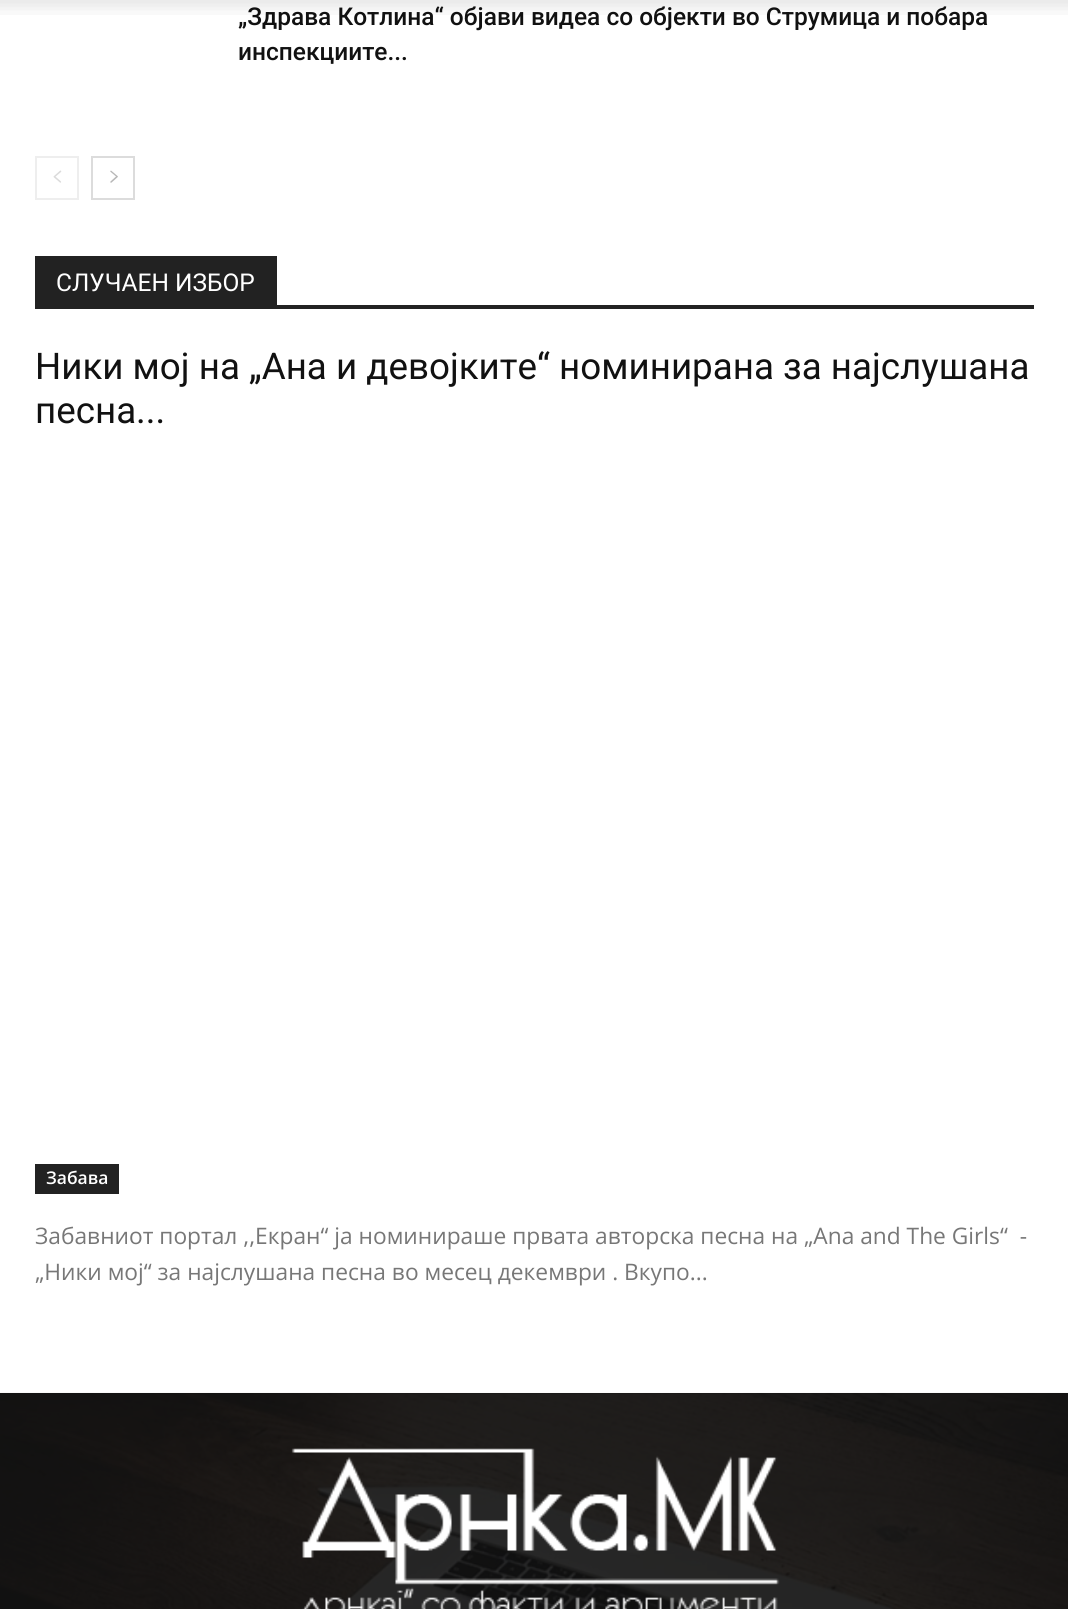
#include <cairo/cairo.h>
#include <math.h>
#include <stddef.h>


static void draw_image(cairo_t *cr, const char *path, double x, double y, double w, double h) {
  cairo_surface_t *image = cairo_image_surface_create_from_png(path);
  cairo_save(cr);
  cairo_set_source_surface(cr, image, x, y);
  cairo_rectangle(cr, x, y, w, h);
  cairo_fill(cr);
  cairo_restore(cr);
  cairo_surface_destroy(image);
}

static void draw(cairo_t *cr) {
  cairo_set_source_rgb(cr, 1, 1, 1);
  cairo_paint(cr);
  cairo_rectangle(cr, 36, 157, 42, 42);
  cairo_set_source_rgb(cr, 238 / 255.0, 238 / 255.0, 238 / 255.0);
  cairo_stroke(cr);
  draw_image(cr, "images/2.png", 53, 170, 9, 13);
  cairo_rectangle(cr, 92, 157, 42, 42);
  cairo_set_source_rgb(cr, 220 / 255.0, 220 / 255.0, 220 / 255.0);
  cairo_stroke(cr);
  draw_image(cr, "images/3.png", 110, 170, 8, 13);
  cairo_set_source_rgb(cr, 34 / 255.0, 34 / 255.0, 34 / 255.0);
  cairo_rectangle(cr, 35, 305, 999, 4);
  cairo_fill(cr);
  cairo_rectangle(cr, 35, 256, 242, 49);
  cairo_fill(cr);
  cairo_rectangle(cr, 35, 1164, 84, 30);
  cairo_fill(cr);
  cairo_set_source_rgb(cr, 17 / 255.0, 17 / 255.0, 17 / 255.0);
  cairo_rectangle(cr, 0, 1393, 1068, 216);
  cairo_fill(cr);
  draw_image(cr, "images/4.png", 0, 1392, 1068, 217);
  draw_image(cr, "images/5.png", 291, 1448, 489, 161);
  cairo_select_font_face(cr, "Roboto Medium", CAIRO_FONT_SLANT_NORMAL, CAIRO_FONT_WEIGHT_NORMAL);
  cairo_set_font_size(cr, 24.5);
  cairo_move_to(cr, 238, 25);
  cairo_show_text(cr, "„Здрава Котлина“ објави видеа со објекти во Струмица и побара");
  draw_image(cr, "images/1.png", 0, 0, 1068, 15);
  cairo_move_to(cr, 238, 60);
  cairo_show_text(cr, "инспекциите...");
  cairo_select_font_face(cr, "Roboto", CAIRO_FONT_SLANT_NORMAL, CAIRO_FONT_WEIGHT_NORMAL);
  cairo_set_source_rgb(cr, 1, 1, 1);
  cairo_move_to(cr, 56, 291);
  cairo_show_text(cr, "СЛУЧАЕН ИЗБОР");
  cairo_set_font_size(cr, 36.75);
  cairo_set_source_rgb(cr, 17 / 255.0, 17 / 255.0, 17 / 255.0);
  cairo_move_to(cr, 35, 379);
  cairo_show_text(cr, "Ники мој на „Ана и девојките“ номинирана за најслушана");
  cairo_move_to(cr, 35, 423);
  cairo_show_text(cr, "песна...");
  cairo_select_font_face(cr, "Open Sans SemiBold", CAIRO_FONT_SLANT_NORMAL, CAIRO_FONT_WEIGHT_NORMAL);
  cairo_set_font_size(cr, 17.5);
  cairo_set_source_rgb(cr, 1, 1, 1);
  cairo_move_to(cr, 46, 1184);
  cairo_show_text(cr, "Забава");
  cairo_select_font_face(cr, "Open Sans", CAIRO_FONT_SLANT_NORMAL, CAIRO_FONT_WEIGHT_NORMAL);
  cairo_set_font_size(cr, 22.75);
  cairo_set_source_rgb(cr, 119 / 255.0, 119 / 255.0, 119 / 255.0);
  cairo_move_to(cr, 35, 1244);
  cairo_show_text(cr, "Забавниот портал ,,Екран“ ја номинираше првата авторска песна на „Ana and The Girls“  -");
  cairo_move_to(cr, 35, 1280);
  cairo_show_text(cr, "„Ники мој“ за најслушана песна во месец декември . Вкупо...");
}

int main(void) {
  cairo_surface_t *surface = cairo_image_surface_create(CAIRO_FORMAT_RGB24, 1068, 1609);
  cairo_t *cr = cairo_create(surface);
  cairo_font_options_t *options = cairo_font_options_create();
  cairo_font_options_set_hint_metrics(options, CAIRO_HINT_METRICS_OFF);
  cairo_font_options_set_hint_style(options, CAIRO_HINT_STYLE_NONE);
  cairo_set_font_options(cr, options);
  cairo_set_miter_limit(cr, 4);
  draw(cr);
  cairo_surface_write_to_png(surface, "out.png");
  cairo_font_options_destroy(options);
  cairo_destroy(cr);
  cairo_surface_destroy(surface);
  return 0;
}
